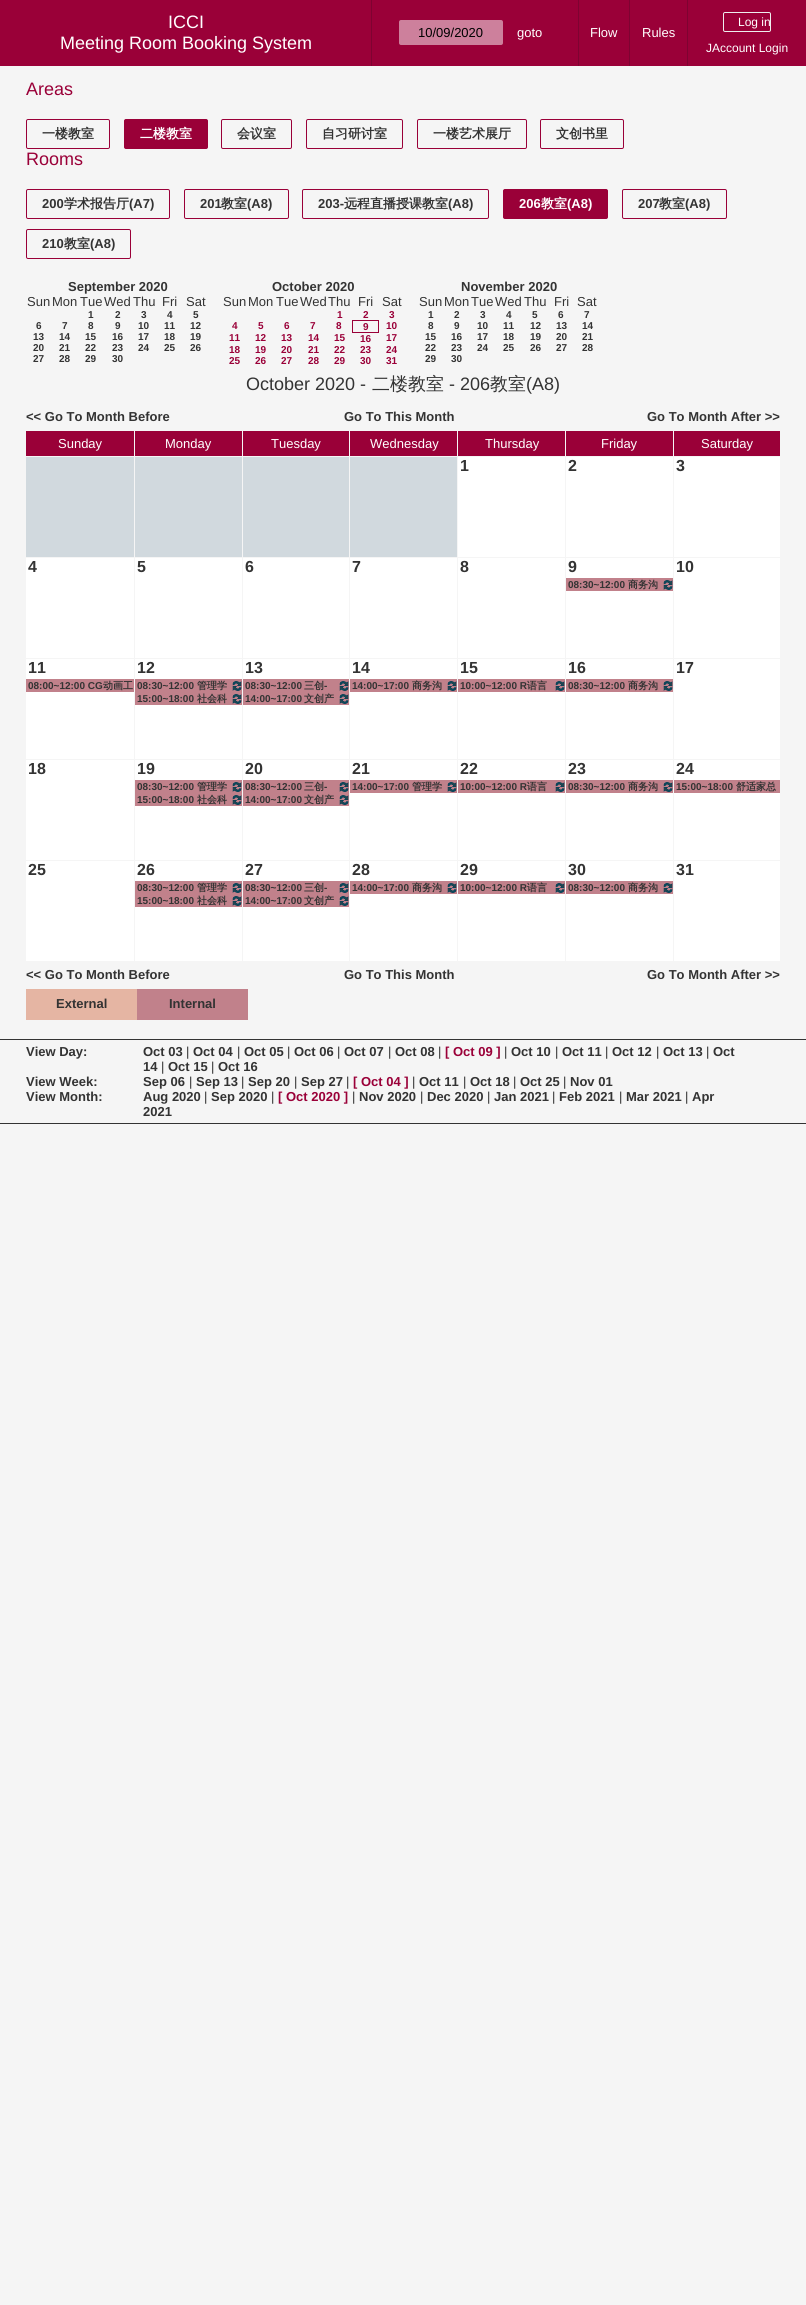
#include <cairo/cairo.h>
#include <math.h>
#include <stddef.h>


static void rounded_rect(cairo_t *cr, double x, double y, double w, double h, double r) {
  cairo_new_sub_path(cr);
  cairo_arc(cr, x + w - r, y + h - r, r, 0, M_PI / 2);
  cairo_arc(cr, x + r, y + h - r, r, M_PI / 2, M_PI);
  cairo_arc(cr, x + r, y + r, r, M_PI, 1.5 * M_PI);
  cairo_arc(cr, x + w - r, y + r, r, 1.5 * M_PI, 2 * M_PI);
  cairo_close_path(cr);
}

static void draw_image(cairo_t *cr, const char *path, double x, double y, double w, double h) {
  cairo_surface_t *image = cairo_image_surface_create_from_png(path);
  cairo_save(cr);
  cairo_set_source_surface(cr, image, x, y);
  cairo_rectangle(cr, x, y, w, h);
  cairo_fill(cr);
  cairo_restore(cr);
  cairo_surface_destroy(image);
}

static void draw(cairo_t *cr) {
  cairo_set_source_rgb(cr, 245 / 255.0, 245 / 255.0, 245 / 255.0);
  cairo_paint(cr);
  cairo_set_source_rgb(cr, 154 / 255.0, 0, 56 / 255.0);
  cairo_rectangle(cr, 0, 0, 806, 66);
  cairo_fill(cr);
  cairo_set_source_rgb(cr, 126 / 255.0, 3 / 255.0, 49 / 255.0);
  cairo_rectangle(cr, 371, 0, 1, 66);
  cairo_fill(cr);
  cairo_set_source_rgb(cr, 205 / 255.0, 128 / 255.0, 156 / 255.0);
  rounded_rect(cr, 399, 20, 104, 25, 2);
  cairo_fill(cr);
  cairo_set_source_rgb(cr, 126 / 255.0, 3 / 255.0, 49 / 255.0);
  cairo_rectangle(cr, 578, 0, 1, 66);
  cairo_fill(cr);
  cairo_rectangle(cr, 629, 0, 1, 66);
  cairo_fill(cr);
  cairo_rectangle(cr, 687, 0, 1, 66);
  cairo_fill(cr);
  rounded_rect(cr, 723.5, 12.5, 47, 19, 1.5);
  cairo_set_source_rgb(cr, 238 / 255.0, 238 / 255.0, 238 / 255.0);
  cairo_set_line_width(cr, 1);
  cairo_stroke(cr);
  rounded_rect(cr, 26.5, 119.5, 83, 29, 1.5);
  cairo_set_source_rgb(cr, 154 / 255.0, 0, 56 / 255.0);
  cairo_stroke(cr);
  rounded_rect(cr, 124.5, 119.5, 83, 29, 1.5);
  cairo_fill_preserve(cr);
  cairo_stroke(cr);
  rounded_rect(cr, 221.5, 119.5, 70, 29, 1.5);
  cairo_stroke(cr);
  rounded_rect(cr, 306.5, 119.5, 96, 29, 1.5);
  cairo_stroke(cr);
  rounded_rect(cr, 417.5, 119.5, 109, 29, 1.5);
  cairo_stroke(cr);
  rounded_rect(cr, 540.5, 119.5, 83, 29, 1.5);
  cairo_stroke(cr);
  rounded_rect(cr, 26.5, 189.5, 143, 29, 1.5);
  cairo_stroke(cr);
  rounded_rect(cr, 184.5, 189.5, 104, 29, 1.5);
  cairo_stroke(cr);
  rounded_rect(cr, 302.5, 189.5, 186, 29, 1.5);
  cairo_stroke(cr);
  rounded_rect(cr, 503.5, 189.5, 104, 29, 1.5);
  cairo_fill_preserve(cr);
  cairo_stroke(cr);
  rounded_rect(cr, 622.5, 189.5, 104, 29, 1.5);
  cairo_stroke(cr);
  rounded_rect(cr, 26.5, 229.5, 104, 29, 1.5);
  cairo_stroke(cr);
  cairo_rectangle(cr, 352, 320, 27, 1);
  cairo_fill(cr);
  cairo_rectangle(cr, 378, 320, 1, 13);
  cairo_fill(cr);
  cairo_rectangle(cr, 352, 332, 27, 1);
  cairo_fill(cr);
  cairo_rectangle(cr, 352, 320, 1, 13);
  cairo_fill(cr);
  cairo_rectangle(cr, 26, 431, 108, 25);
  cairo_fill(cr);
  cairo_rectangle(cr, 135, 431, 107, 25);
  cairo_fill(cr);
  cairo_rectangle(cr, 243, 431, 106, 25);
  cairo_fill(cr);
  cairo_rectangle(cr, 350, 431, 107, 25);
  cairo_fill(cr);
  cairo_rectangle(cr, 458, 431, 107, 25);
  cairo_fill(cr);
  cairo_rectangle(cr, 566, 431, 107, 25);
  cairo_fill(cr);
  cairo_rectangle(cr, 674, 431, 106, 25);
  cairo_fill(cr);
  cairo_set_source_rgb(cr, 209 / 255.0, 217 / 255.0, 222 / 255.0);
  cairo_rectangle(cr, 26, 457, 108, 100);
  cairo_fill(cr);
  cairo_rectangle(cr, 135, 457, 107, 100);
  cairo_fill(cr);
  cairo_rectangle(cr, 243, 457, 106, 100);
  cairo_fill(cr);
  cairo_rectangle(cr, 350, 457, 107, 100);
  cairo_fill(cr);
  cairo_set_source_rgb(cr, 1, 1, 1);
  cairo_rectangle(cr, 458, 457, 107, 100);
  cairo_fill(cr);
  cairo_rectangle(cr, 566, 457, 107, 100);
  cairo_fill(cr);
  cairo_rectangle(cr, 674, 457, 106, 100);
  cairo_fill(cr);
  cairo_rectangle(cr, 26, 558, 108, 100);
  cairo_fill(cr);
  cairo_rectangle(cr, 135, 558, 107, 100);
  cairo_fill(cr);
  cairo_rectangle(cr, 243, 558, 106, 100);
  cairo_fill(cr);
  cairo_rectangle(cr, 350, 558, 107, 100);
  cairo_fill(cr);
  cairo_rectangle(cr, 458, 558, 107, 100);
  cairo_fill(cr);
  cairo_rectangle(cr, 566, 558, 107, 100);
  cairo_fill(cr);
  cairo_set_source_rgb(cr, 193 / 255.0, 129 / 255.0, 139 / 255.0);
  cairo_rectangle(cr, 566, 578, 107, 13);
  cairo_fill(cr);
  draw_image(cr, "images/1.png", 663, 580, 10, 10);
  cairo_set_source_rgb(cr, 1, 1, 1);
  cairo_rectangle(cr, 674, 558, 106, 100);
  cairo_fill(cr);
  cairo_rectangle(cr, 26, 659, 108, 100);
  cairo_fill(cr);
  cairo_set_source_rgb(cr, 193 / 255.0, 129 / 255.0, 139 / 255.0);
  cairo_rectangle(cr, 26, 679, 108, 13);
  cairo_fill(cr);
  cairo_set_source_rgb(cr, 1, 1, 1);
  cairo_rectangle(cr, 135, 659, 107, 100);
  cairo_fill(cr);
  cairo_set_source_rgb(cr, 193 / 255.0, 129 / 255.0, 139 / 255.0);
  cairo_rectangle(cr, 135, 679, 107, 26);
  cairo_fill(cr);
  draw_image(cr, "images/1.png", 232, 681, 10, 10);
  draw_image(cr, "images/1.png", 232, 694, 10, 10);
  cairo_set_source_rgb(cr, 1, 1, 1);
  cairo_rectangle(cr, 243, 659, 106, 100);
  cairo_fill(cr);
  cairo_set_source_rgb(cr, 193 / 255.0, 129 / 255.0, 139 / 255.0);
  cairo_rectangle(cr, 243, 679, 106, 26);
  cairo_fill(cr);
  draw_image(cr, "images/1.png", 339, 681, 10, 10);
  draw_image(cr, "images/1.png", 339, 694, 10, 10);
  cairo_set_source_rgb(cr, 1, 1, 1);
  cairo_rectangle(cr, 350, 659, 107, 100);
  cairo_fill(cr);
  cairo_set_source_rgb(cr, 193 / 255.0, 129 / 255.0, 139 / 255.0);
  cairo_rectangle(cr, 350, 679, 107, 13);
  cairo_fill(cr);
  draw_image(cr, "images/1.png", 447, 681, 10, 10);
  cairo_set_source_rgb(cr, 1, 1, 1);
  cairo_rectangle(cr, 458, 659, 107, 100);
  cairo_fill(cr);
  cairo_set_source_rgb(cr, 193 / 255.0, 129 / 255.0, 139 / 255.0);
  cairo_rectangle(cr, 458, 679, 107, 13);
  cairo_fill(cr);
  draw_image(cr, "images/1.png", 555, 681, 10, 10);
  cairo_set_source_rgb(cr, 1, 1, 1);
  cairo_rectangle(cr, 566, 659, 107, 100);
  cairo_fill(cr);
  cairo_set_source_rgb(cr, 193 / 255.0, 129 / 255.0, 139 / 255.0);
  cairo_rectangle(cr, 566, 679, 107, 13);
  cairo_fill(cr);
  draw_image(cr, "images/1.png", 663, 681, 10, 10);
  cairo_set_source_rgb(cr, 1, 1, 1);
  cairo_rectangle(cr, 674, 659, 106, 100);
  cairo_fill(cr);
  cairo_rectangle(cr, 26, 760, 108, 100);
  cairo_fill(cr);
  cairo_rectangle(cr, 135, 760, 107, 100);
  cairo_fill(cr);
  cairo_set_source_rgb(cr, 193 / 255.0, 129 / 255.0, 139 / 255.0);
  cairo_rectangle(cr, 135, 780, 107, 26);
  cairo_fill(cr);
  draw_image(cr, "images/1.png", 232, 782, 10, 10);
  draw_image(cr, "images/1.png", 232, 795, 10, 10);
  cairo_set_source_rgb(cr, 1, 1, 1);
  cairo_rectangle(cr, 243, 760, 106, 100);
  cairo_fill(cr);
  cairo_set_source_rgb(cr, 193 / 255.0, 129 / 255.0, 139 / 255.0);
  cairo_rectangle(cr, 243, 780, 106, 26);
  cairo_fill(cr);
  draw_image(cr, "images/1.png", 339, 782, 10, 10);
  draw_image(cr, "images/1.png", 339, 795, 10, 10);
  cairo_set_source_rgb(cr, 1, 1, 1);
  cairo_rectangle(cr, 350, 760, 107, 100);
  cairo_fill(cr);
  cairo_set_source_rgb(cr, 193 / 255.0, 129 / 255.0, 139 / 255.0);
  cairo_rectangle(cr, 350, 780, 107, 13);
  cairo_fill(cr);
  draw_image(cr, "images/1.png", 447, 782, 10, 10);
  cairo_set_source_rgb(cr, 1, 1, 1);
  cairo_rectangle(cr, 458, 760, 107, 100);
  cairo_fill(cr);
  cairo_set_source_rgb(cr, 193 / 255.0, 129 / 255.0, 139 / 255.0);
  cairo_rectangle(cr, 458, 780, 107, 13);
  cairo_fill(cr);
  draw_image(cr, "images/1.png", 555, 782, 10, 10);
  cairo_set_source_rgb(cr, 1, 1, 1);
  cairo_rectangle(cr, 566, 760, 107, 100);
  cairo_fill(cr);
  cairo_set_source_rgb(cr, 193 / 255.0, 129 / 255.0, 139 / 255.0);
  cairo_rectangle(cr, 566, 780, 107, 13);
  cairo_fill(cr);
  draw_image(cr, "images/1.png", 663, 782, 10, 10);
  cairo_set_source_rgb(cr, 1, 1, 1);
  cairo_rectangle(cr, 674, 760, 106, 100);
  cairo_fill(cr);
  cairo_set_source_rgb(cr, 193 / 255.0, 129 / 255.0, 139 / 255.0);
  cairo_rectangle(cr, 674, 780, 106, 13);
  cairo_fill(cr);
  cairo_set_source_rgb(cr, 1, 1, 1);
  cairo_rectangle(cr, 26, 861, 108, 100);
  cairo_fill(cr);
  cairo_rectangle(cr, 135, 861, 107, 100);
  cairo_fill(cr);
  cairo_set_source_rgb(cr, 193 / 255.0, 129 / 255.0, 139 / 255.0);
  cairo_rectangle(cr, 135, 881, 107, 26);
  cairo_fill(cr);
  draw_image(cr, "images/1.png", 232, 883, 10, 10);
  draw_image(cr, "images/1.png", 232, 896, 10, 10);
  cairo_set_source_rgb(cr, 1, 1, 1);
  cairo_rectangle(cr, 243, 861, 106, 100);
  cairo_fill(cr);
  cairo_set_source_rgb(cr, 193 / 255.0, 129 / 255.0, 139 / 255.0);
  cairo_rectangle(cr, 243, 881, 106, 26);
  cairo_fill(cr);
  draw_image(cr, "images/1.png", 339, 883, 10, 10);
  draw_image(cr, "images/1.png", 339, 896, 10, 10);
  cairo_set_source_rgb(cr, 1, 1, 1);
  cairo_rectangle(cr, 350, 861, 107, 100);
  cairo_fill(cr);
  cairo_set_source_rgb(cr, 193 / 255.0, 129 / 255.0, 139 / 255.0);
  cairo_rectangle(cr, 350, 881, 107, 13);
  cairo_fill(cr);
  draw_image(cr, "images/1.png", 447, 883, 10, 10);
  cairo_set_source_rgb(cr, 1, 1, 1);
  cairo_rectangle(cr, 458, 861, 107, 100);
  cairo_fill(cr);
  cairo_set_source_rgb(cr, 193 / 255.0, 129 / 255.0, 139 / 255.0);
  cairo_rectangle(cr, 458, 881, 107, 13);
  cairo_fill(cr);
  draw_image(cr, "images/1.png", 555, 883, 10, 10);
  cairo_set_source_rgb(cr, 1, 1, 1);
  cairo_rectangle(cr, 566, 861, 107, 100);
  cairo_fill(cr);
  cairo_set_source_rgb(cr, 193 / 255.0, 129 / 255.0, 139 / 255.0);
  cairo_rectangle(cr, 566, 881, 107, 13);
  cairo_fill(cr);
  draw_image(cr, "images/1.png", 663, 883, 10, 10);
  cairo_set_source_rgb(cr, 1, 1, 1);
  cairo_rectangle(cr, 674, 861, 106, 100);
  cairo_fill(cr);
  cairo_set_source_rgb(cr, 229 / 255.0, 181 / 255.0, 163 / 255.0);
  cairo_rectangle(cr, 26, 989, 111, 31);
  cairo_fill(cr);
  cairo_set_source_rgb(cr, 193 / 255.0, 129 / 255.0, 139 / 255.0);
  cairo_rectangle(cr, 137, 989, 111, 31);
  cairo_fill(cr);
  cairo_set_source_rgb(cr, 51 / 255.0, 51 / 255.0, 51 / 255.0);
  cairo_rectangle(cr, 0, 1039, 806, 1);
  cairo_fill(cr);
  cairo_rectangle(cr, 0, 1123, 806, 1);
  cairo_fill(cr);
  cairo_select_font_face(cr, "Liberation Sans", CAIRO_FONT_SLANT_NORMAL, CAIRO_FONT_WEIGHT_NORMAL);
  cairo_set_font_size(cr, 18);
  cairo_set_source_rgb(cr, 1, 1, 1);
  cairo_move_to(cr, 168, 28);
  cairo_show_text(cr, "ICCI");
  cairo_move_to(cr, 60, 49);
  cairo_show_text(cr, "Meeting Room Booking System");
  cairo_set_font_size(cr, 13);
  cairo_set_source_rgb(cr, 0, 0, 0);
  cairo_move_to(cr, 418, 37);
  cairo_show_text(cr, "10/09/2020");
  cairo_set_source_rgb(cr, 1, 1, 1);
  cairo_move_to(cr, 517, 37);
  cairo_show_text(cr, "goto");
  cairo_move_to(cr, 590, 37);
  cairo_show_text(cr, "Flow");
  cairo_move_to(cr, 642, 37);
  cairo_show_text(cr, "Rules");
  cairo_set_font_size(cr, 12);
  cairo_move_to(cr, 738, 26);
  cairo_show_text(cr, "Log in");
  cairo_move_to(cr, 706, 52);
  cairo_show_text(cr, "JAccount Login");
  cairo_set_font_size(cr, 18);
  cairo_set_source_rgb(cr, 154 / 255.0, 0, 56 / 255.0);
  cairo_move_to(cr, 26, 95);
  cairo_show_text(cr, "Areas");
  cairo_select_font_face(cr, "WenQuanYi Zen Hei", CAIRO_FONT_SLANT_NORMAL, CAIRO_FONT_WEIGHT_BOLD);
  cairo_set_font_size(cr, 13);
  cairo_set_source_rgb(cr, 51 / 255.0, 51 / 255.0, 51 / 255.0);
  cairo_move_to(cr, 42, 138);
  cairo_show_text(cr, "一楼教室");
  cairo_set_source_rgb(cr, 1, 1, 1);
  cairo_move_to(cr, 140, 138);
  cairo_show_text(cr, "二楼教室");
  cairo_set_source_rgb(cr, 51 / 255.0, 51 / 255.0, 51 / 255.0);
  cairo_move_to(cr, 237, 138);
  cairo_show_text(cr, "会议室");
  cairo_move_to(cr, 322, 138);
  cairo_show_text(cr, "自习研讨室");
  cairo_move_to(cr, 433, 138);
  cairo_show_text(cr, "一楼艺术展厅");
  cairo_move_to(cr, 556, 138);
  cairo_show_text(cr, "文创书里");
  cairo_select_font_face(cr, "Liberation Sans", CAIRO_FONT_SLANT_NORMAL, CAIRO_FONT_WEIGHT_NORMAL);
  cairo_set_font_size(cr, 18);
  cairo_set_source_rgb(cr, 154 / 255.0, 0, 56 / 255.0);
  cairo_move_to(cr, 26, 165);
  cairo_show_text(cr, "Rooms");
  cairo_select_font_face(cr, "Liberation Sans", CAIRO_FONT_SLANT_NORMAL, CAIRO_FONT_WEIGHT_BOLD);
  cairo_set_font_size(cr, 13);
  cairo_set_source_rgb(cr, 51 / 255.0, 51 / 255.0, 51 / 255.0);
  cairo_move_to(cr, 42, 208);
  cairo_show_text(cr, "200");
  cairo_select_font_face(cr, "WenQuanYi Zen Hei", CAIRO_FONT_SLANT_NORMAL, CAIRO_FONT_WEIGHT_BOLD);
  cairo_move_to(cr, 64, 208);
  cairo_show_text(cr, "学术报告厅");
  cairo_select_font_face(cr, "Liberation Sans", CAIRO_FONT_SLANT_NORMAL, CAIRO_FONT_WEIGHT_BOLD);
  cairo_move_to(cr, 129, 208);
  cairo_show_text(cr, "(A7)");
  cairo_move_to(cr, 200, 208);
  cairo_show_text(cr, "201");
  cairo_select_font_face(cr, "WenQuanYi Zen Hei", CAIRO_FONT_SLANT_NORMAL, CAIRO_FONT_WEIGHT_BOLD);
  cairo_move_to(cr, 221, 208);
  cairo_show_text(cr, "教室");
  cairo_select_font_face(cr, "Liberation Sans", CAIRO_FONT_SLANT_NORMAL, CAIRO_FONT_WEIGHT_BOLD);
  cairo_move_to(cr, 247, 208);
  cairo_show_text(cr, "(A8)");
  cairo_move_to(cr, 318, 208);
  cairo_show_text(cr, "203-");
  cairo_select_font_face(cr, "WenQuanYi Zen Hei", CAIRO_FONT_SLANT_NORMAL, CAIRO_FONT_WEIGHT_BOLD);
  cairo_move_to(cr, 344, 208);
  cairo_show_text(cr, "远程直播授课教室");
  cairo_select_font_face(cr, "Liberation Sans", CAIRO_FONT_SLANT_NORMAL, CAIRO_FONT_WEIGHT_BOLD);
  cairo_move_to(cr, 448, 208);
  cairo_show_text(cr, "(A8)");
  cairo_set_source_rgb(cr, 1, 1, 1);
  cairo_move_to(cr, 519, 208);
  cairo_show_text(cr, "206");
  cairo_select_font_face(cr, "WenQuanYi Zen Hei", CAIRO_FONT_SLANT_NORMAL, CAIRO_FONT_WEIGHT_BOLD);
  cairo_move_to(cr, 541, 208);
  cairo_show_text(cr, "教室");
  cairo_select_font_face(cr, "Liberation Sans", CAIRO_FONT_SLANT_NORMAL, CAIRO_FONT_WEIGHT_BOLD);
  cairo_move_to(cr, 567, 208);
  cairo_show_text(cr, "(A8)");
  cairo_set_source_rgb(cr, 51 / 255.0, 51 / 255.0, 51 / 255.0);
  cairo_move_to(cr, 638, 208);
  cairo_show_text(cr, "207");
  cairo_select_font_face(cr, "WenQuanYi Zen Hei", CAIRO_FONT_SLANT_NORMAL, CAIRO_FONT_WEIGHT_BOLD);
  cairo_move_to(cr, 659, 208);
  cairo_show_text(cr, "教室");
  cairo_select_font_face(cr, "Liberation Sans", CAIRO_FONT_SLANT_NORMAL, CAIRO_FONT_WEIGHT_BOLD);
  cairo_move_to(cr, 685, 208);
  cairo_show_text(cr, "(A8)");
  cairo_move_to(cr, 42, 248);
  cairo_show_text(cr, "210");
  cairo_select_font_face(cr, "WenQuanYi Zen Hei", CAIRO_FONT_SLANT_NORMAL, CAIRO_FONT_WEIGHT_BOLD);
  cairo_move_to(cr, 64, 248);
  cairo_show_text(cr, "教室");
  cairo_select_font_face(cr, "Liberation Sans", CAIRO_FONT_SLANT_NORMAL, CAIRO_FONT_WEIGHT_BOLD);
  cairo_move_to(cr, 90, 248);
  cairo_show_text(cr, "(A8)");
  cairo_move_to(cr, 68, 291);
  cairo_show_text(cr, "September 2020");
  cairo_select_font_face(cr, "Liberation Sans", CAIRO_FONT_SLANT_NORMAL, CAIRO_FONT_WEIGHT_NORMAL);
  cairo_move_to(cr, 27, 306);
  cairo_show_text(cr, "Sun");
  cairo_move_to(cr, 52, 306);
  cairo_show_text(cr, "Mon");
  cairo_move_to(cr, 80, 306);
  cairo_show_text(cr, "Tue");
  cairo_move_to(cr, 104, 306);
  cairo_show_text(cr, "Wed");
  cairo_move_to(cr, 133, 306);
  cairo_show_text(cr, "Thu");
  cairo_move_to(cr, 162, 306);
  cairo_show_text(cr, "Fri");
  cairo_move_to(cr, 186, 306);
  cairo_show_text(cr, "Sat");
  cairo_select_font_face(cr, "Liberation Sans", CAIRO_FONT_SLANT_NORMAL, CAIRO_FONT_WEIGHT_BOLD);
  cairo_set_font_size(cr, 10);
  cairo_move_to(cr, 88, 318);
  cairo_show_text(cr, "1");
  cairo_move_to(cr, 115, 318);
  cairo_show_text(cr, "2");
  cairo_move_to(cr, 141, 318);
  cairo_show_text(cr, "3");
  cairo_move_to(cr, 167, 318);
  cairo_show_text(cr, "4");
  cairo_move_to(cr, 193, 318);
  cairo_show_text(cr, "5");
  cairo_move_to(cr, 36, 329);
  cairo_show_text(cr, "6");
  cairo_move_to(cr, 62, 329);
  cairo_show_text(cr, "7");
  cairo_move_to(cr, 88, 329);
  cairo_show_text(cr, "8");
  cairo_move_to(cr, 115, 329);
  cairo_show_text(cr, "9");
  cairo_move_to(cr, 138, 329);
  cairo_show_text(cr, "10");
  cairo_move_to(cr, 164, 329);
  cairo_show_text(cr, "11");
  cairo_move_to(cr, 190, 329);
  cairo_show_text(cr, "12");
  cairo_move_to(cr, 33, 340);
  cairo_show_text(cr, "13");
  cairo_move_to(cr, 59, 340);
  cairo_show_text(cr, "14");
  cairo_move_to(cr, 85, 340);
  cairo_show_text(cr, "15");
  cairo_move_to(cr, 112, 340);
  cairo_show_text(cr, "16");
  cairo_move_to(cr, 138, 340);
  cairo_show_text(cr, "17");
  cairo_move_to(cr, 164, 340);
  cairo_show_text(cr, "18");
  cairo_move_to(cr, 190, 340);
  cairo_show_text(cr, "19");
  cairo_move_to(cr, 33, 351);
  cairo_show_text(cr, "20");
  cairo_move_to(cr, 59, 351);
  cairo_show_text(cr, "21");
  cairo_move_to(cr, 85, 351);
  cairo_show_text(cr, "22");
  cairo_move_to(cr, 112, 351);
  cairo_show_text(cr, "23");
  cairo_move_to(cr, 138, 351);
  cairo_show_text(cr, "24");
  cairo_move_to(cr, 164, 351);
  cairo_show_text(cr, "25");
  cairo_move_to(cr, 190, 351);
  cairo_show_text(cr, "26");
  cairo_move_to(cr, 33, 362);
  cairo_show_text(cr, "27");
  cairo_move_to(cr, 59, 362);
  cairo_show_text(cr, "28");
  cairo_move_to(cr, 85, 362);
  cairo_show_text(cr, "29");
  cairo_move_to(cr, 112, 362);
  cairo_show_text(cr, "30");
  cairo_set_font_size(cr, 13);
  cairo_move_to(cr, 272, 291);
  cairo_show_text(cr, "October 2020");
  cairo_select_font_face(cr, "Liberation Sans", CAIRO_FONT_SLANT_NORMAL, CAIRO_FONT_WEIGHT_NORMAL);
  cairo_move_to(cr, 223, 306);
  cairo_show_text(cr, "Sun");
  cairo_move_to(cr, 248, 306);
  cairo_show_text(cr, "Mon");
  cairo_move_to(cr, 276, 306);
  cairo_show_text(cr, "Tue");
  cairo_move_to(cr, 300, 306);
  cairo_show_text(cr, "Wed");
  cairo_move_to(cr, 328, 306);
  cairo_show_text(cr, "Thu");
  cairo_move_to(cr, 358, 306);
  cairo_show_text(cr, "Fri");
  cairo_move_to(cr, 382, 306);
  cairo_show_text(cr, "Sat");
  cairo_select_font_face(cr, "Liberation Sans", CAIRO_FONT_SLANT_NORMAL, CAIRO_FONT_WEIGHT_BOLD);
  cairo_set_font_size(cr, 10);
  cairo_set_source_rgb(cr, 154 / 255.0, 0, 56 / 255.0);
  cairo_move_to(cr, 337, 318);
  cairo_show_text(cr, "1");
  cairo_move_to(cr, 363, 318);
  cairo_show_text(cr, "2");
  cairo_move_to(cr, 389, 318);
  cairo_show_text(cr, "3");
  cairo_move_to(cr, 232, 329);
  cairo_show_text(cr, "4");
  cairo_move_to(cr, 258, 329);
  cairo_show_text(cr, "5");
  cairo_move_to(cr, 284, 329);
  cairo_show_text(cr, "6");
  cairo_move_to(cr, 310, 329);
  cairo_show_text(cr, "7");
  cairo_move_to(cr, 336, 329);
  cairo_show_text(cr, "8");
  cairo_move_to(cr, 363, 330);
  cairo_show_text(cr, "9");
  cairo_move_to(cr, 386, 329);
  cairo_show_text(cr, "10");
  cairo_move_to(cr, 229, 341);
  cairo_show_text(cr, "11");
  cairo_move_to(cr, 255, 341);
  cairo_show_text(cr, "12");
  cairo_move_to(cr, 281, 341);
  cairo_show_text(cr, "13");
  cairo_move_to(cr, 308, 341);
  cairo_show_text(cr, "14");
  cairo_move_to(cr, 334, 341);
  cairo_show_text(cr, "15");
  cairo_move_to(cr, 360, 342);
  cairo_show_text(cr, "16");
  cairo_move_to(cr, 386, 341);
  cairo_show_text(cr, "17");
  cairo_move_to(cr, 229, 353);
  cairo_show_text(cr, "18");
  cairo_move_to(cr, 255, 353);
  cairo_show_text(cr, "19");
  cairo_move_to(cr, 281, 353);
  cairo_show_text(cr, "20");
  cairo_move_to(cr, 308, 353);
  cairo_show_text(cr, "21");
  cairo_move_to(cr, 334, 353);
  cairo_show_text(cr, "22");
  cairo_move_to(cr, 360, 353);
  cairo_show_text(cr, "23");
  cairo_move_to(cr, 386, 353);
  cairo_show_text(cr, "24");
  cairo_move_to(cr, 229, 364);
  cairo_show_text(cr, "25");
  cairo_move_to(cr, 255, 364);
  cairo_show_text(cr, "26");
  cairo_move_to(cr, 281, 364);
  cairo_show_text(cr, "27");
  cairo_move_to(cr, 308, 364);
  cairo_show_text(cr, "28");
  cairo_move_to(cr, 334, 364);
  cairo_show_text(cr, "29");
  cairo_move_to(cr, 360, 364);
  cairo_show_text(cr, "30");
  cairo_move_to(cr, 386, 364);
  cairo_show_text(cr, "31");
  cairo_set_font_size(cr, 13);
  cairo_set_source_rgb(cr, 51 / 255.0, 51 / 255.0, 51 / 255.0);
  cairo_move_to(cr, 461, 291);
  cairo_show_text(cr, "November 2020");
  cairo_select_font_face(cr, "Liberation Sans", CAIRO_FONT_SLANT_NORMAL, CAIRO_FONT_WEIGHT_NORMAL);
  cairo_move_to(cr, 419, 306);
  cairo_show_text(cr, "Sun");
  cairo_move_to(cr, 444, 306);
  cairo_show_text(cr, "Mon");
  cairo_move_to(cr, 471, 306);
  cairo_show_text(cr, "Tue");
  cairo_move_to(cr, 495, 306);
  cairo_show_text(cr, "Wed");
  cairo_move_to(cr, 524, 306);
  cairo_show_text(cr, "Thu");
  cairo_move_to(cr, 554, 306);
  cairo_show_text(cr, "Fri");
  cairo_move_to(cr, 577, 306);
  cairo_show_text(cr, "Sat");
  cairo_select_font_face(cr, "Liberation Sans", CAIRO_FONT_SLANT_NORMAL, CAIRO_FONT_WEIGHT_BOLD);
  cairo_set_font_size(cr, 10);
  cairo_move_to(cr, 428, 318);
  cairo_show_text(cr, "1");
  cairo_move_to(cr, 454, 318);
  cairo_show_text(cr, "2");
  cairo_move_to(cr, 480, 318);
  cairo_show_text(cr, "3");
  cairo_move_to(cr, 506, 318);
  cairo_show_text(cr, "4");
  cairo_move_to(cr, 532, 318);
  cairo_show_text(cr, "5");
  cairo_move_to(cr, 558, 318);
  cairo_show_text(cr, "6");
  cairo_move_to(cr, 584, 318);
  cairo_show_text(cr, "7");
  cairo_move_to(cr, 428, 329);
  cairo_show_text(cr, "8");
  cairo_move_to(cr, 454, 329);
  cairo_show_text(cr, "9");
  cairo_move_to(cr, 477, 329);
  cairo_show_text(cr, "10");
  cairo_move_to(cr, 503, 329);
  cairo_show_text(cr, "11");
  cairo_move_to(cr, 530, 329);
  cairo_show_text(cr, "12");
  cairo_move_to(cr, 556, 329);
  cairo_show_text(cr, "13");
  cairo_move_to(cr, 582, 329);
  cairo_show_text(cr, "14");
  cairo_move_to(cr, 425, 340);
  cairo_show_text(cr, "15");
  cairo_move_to(cr, 451, 340);
  cairo_show_text(cr, "16");
  cairo_move_to(cr, 477, 340);
  cairo_show_text(cr, "17");
  cairo_move_to(cr, 503, 340);
  cairo_show_text(cr, "18");
  cairo_move_to(cr, 530, 340);
  cairo_show_text(cr, "19");
  cairo_move_to(cr, 556, 340);
  cairo_show_text(cr, "20");
  cairo_move_to(cr, 582, 340);
  cairo_show_text(cr, "21");
  cairo_move_to(cr, 425, 351);
  cairo_show_text(cr, "22");
  cairo_move_to(cr, 451, 351);
  cairo_show_text(cr, "23");
  cairo_move_to(cr, 477, 351);
  cairo_show_text(cr, "24");
  cairo_move_to(cr, 503, 351);
  cairo_show_text(cr, "25");
  cairo_move_to(cr, 530, 351);
  cairo_show_text(cr, "26");
  cairo_move_to(cr, 556, 351);
  cairo_show_text(cr, "27");
  cairo_move_to(cr, 582, 351);
  cairo_show_text(cr, "28");
  cairo_move_to(cr, 425, 362);
  cairo_show_text(cr, "29");
  cairo_move_to(cr, 451, 362);
  cairo_show_text(cr, "30");
  cairo_select_font_face(cr, "Liberation Sans", CAIRO_FONT_SLANT_NORMAL, CAIRO_FONT_WEIGHT_NORMAL);
  cairo_set_font_size(cr, 18);
  cairo_move_to(cr, 246, 390);
  cairo_show_text(cr, "October 2020 -");
  cairo_select_font_face(cr, "WenQuanYi Zen Hei Medium", CAIRO_FONT_SLANT_NORMAL, CAIRO_FONT_WEIGHT_NORMAL);
  cairo_move_to(cr, 372, 390);
  cairo_show_text(cr, "二楼教室");
  cairo_select_font_face(cr, "Liberation Sans", CAIRO_FONT_SLANT_NORMAL, CAIRO_FONT_WEIGHT_NORMAL);
  cairo_move_to(cr, 449, 390);
  cairo_show_text(cr, "- 206");
  cairo_select_font_face(cr, "WenQuanYi Zen Hei Medium", CAIRO_FONT_SLANT_NORMAL, CAIRO_FONT_WEIGHT_NORMAL);
  cairo_move_to(cr, 490, 390);
  cairo_show_text(cr, "教室");
  cairo_select_font_face(cr, "Liberation Sans", CAIRO_FONT_SLANT_NORMAL, CAIRO_FONT_WEIGHT_NORMAL);
  cairo_move_to(cr, 526, 390);
  cairo_show_text(cr, "(A8)");
  cairo_select_font_face(cr, "Liberation Sans", CAIRO_FONT_SLANT_NORMAL, CAIRO_FONT_WEIGHT_BOLD);
  cairo_set_font_size(cr, 13);
  cairo_move_to(cr, 26, 421);
  cairo_show_text(cr, "<< Go To Month Before");
  cairo_move_to(cr, 344, 421);
  cairo_show_text(cr, "Go To This Month");
  cairo_move_to(cr, 647, 421);
  cairo_show_text(cr, "Go To Month After >>");
  cairo_select_font_face(cr, "Liberation Sans", CAIRO_FONT_SLANT_NORMAL, CAIRO_FONT_WEIGHT_NORMAL);
  cairo_set_source_rgb(cr, 1, 1, 1);
  cairo_move_to(cr, 58, 448);
  cairo_show_text(cr, "Sunday");
  cairo_move_to(cr, 165, 448);
  cairo_show_text(cr, "Monday");
  cairo_move_to(cr, 271, 448);
  cairo_show_text(cr, "Tuesday");
  cairo_move_to(cr, 370, 448);
  cairo_show_text(cr, "Wednesday");
  cairo_move_to(cr, 485, 448);
  cairo_show_text(cr, "Thursday");
  cairo_move_to(cr, 601, 448);
  cairo_show_text(cr, "Friday");
  cairo_move_to(cr, 701, 448);
  cairo_show_text(cr, "Saturday");
  cairo_select_font_face(cr, "Liberation Sans", CAIRO_FONT_SLANT_NORMAL, CAIRO_FONT_WEIGHT_BOLD);
  cairo_set_font_size(cr, 16);
  cairo_set_source_rgb(cr, 51 / 255.0, 51 / 255.0, 51 / 255.0);
  cairo_move_to(cr, 460, 471);
  cairo_show_text(cr, "1");
  cairo_move_to(cr, 568, 471);
  cairo_show_text(cr, "2");
  cairo_move_to(cr, 676, 471);
  cairo_show_text(cr, "3");
  cairo_move_to(cr, 28, 572);
  cairo_show_text(cr, "4");
  cairo_move_to(cr, 137, 572);
  cairo_show_text(cr, "5");
  cairo_move_to(cr, 245, 572);
  cairo_show_text(cr, "6");
  cairo_move_to(cr, 352, 572);
  cairo_show_text(cr, "7");
  cairo_move_to(cr, 460, 572);
  cairo_show_text(cr, "8");
  cairo_move_to(cr, 568, 572);
  cairo_show_text(cr, "9");
  cairo_set_font_size(cr, 10);
  cairo_move_to(cr, 568, 588);
  cairo_show_text(cr, "08:30~12:00");
  cairo_select_font_face(cr, "WenQuanYi Zen Hei", CAIRO_FONT_SLANT_NORMAL, CAIRO_FONT_WEIGHT_BOLD);
  cairo_move_to(cr, 628, 588);
  cairo_show_text(cr, "商务沟");
  cairo_select_font_face(cr, "Liberation Sans", CAIRO_FONT_SLANT_NORMAL, CAIRO_FONT_WEIGHT_BOLD);
  cairo_set_font_size(cr, 16);
  cairo_move_to(cr, 676, 572);
  cairo_show_text(cr, "10");
  cairo_move_to(cr, 28, 673);
  cairo_show_text(cr, "11");
  cairo_set_font_size(cr, 10);
  cairo_move_to(cr, 28, 689);
  cairo_show_text(cr, "08:00~12:00 CG");
  cairo_select_font_face(cr, "WenQuanYi Zen Hei", CAIRO_FONT_SLANT_NORMAL, CAIRO_FONT_WEIGHT_BOLD);
  cairo_move_to(cr, 103, 689);
  cairo_show_text(cr, "动画工");
  cairo_select_font_face(cr, "Liberation Sans", CAIRO_FONT_SLANT_NORMAL, CAIRO_FONT_WEIGHT_BOLD);
  cairo_set_font_size(cr, 16);
  cairo_move_to(cr, 137, 673);
  cairo_show_text(cr, "12");
  cairo_set_font_size(cr, 10);
  cairo_move_to(cr, 137, 689);
  cairo_show_text(cr, "08:30~12:00");
  cairo_select_font_face(cr, "WenQuanYi Zen Hei", CAIRO_FONT_SLANT_NORMAL, CAIRO_FONT_WEIGHT_BOLD);
  cairo_move_to(cr, 197, 689);
  cairo_show_text(cr, "管理学");
  cairo_select_font_face(cr, "Liberation Sans", CAIRO_FONT_SLANT_NORMAL, CAIRO_FONT_WEIGHT_BOLD);
  cairo_move_to(cr, 137, 702);
  cairo_show_text(cr, "15:00~18:00");
  cairo_select_font_face(cr, "WenQuanYi Zen Hei", CAIRO_FONT_SLANT_NORMAL, CAIRO_FONT_WEIGHT_BOLD);
  cairo_move_to(cr, 197, 702);
  cairo_show_text(cr, "社会科");
  cairo_select_font_face(cr, "Liberation Sans", CAIRO_FONT_SLANT_NORMAL, CAIRO_FONT_WEIGHT_BOLD);
  cairo_set_font_size(cr, 16);
  cairo_move_to(cr, 245, 673);
  cairo_show_text(cr, "13");
  cairo_set_font_size(cr, 10);
  cairo_move_to(cr, 245, 689);
  cairo_show_text(cr, "08:30~12:00");
  cairo_select_font_face(cr, "WenQuanYi Zen Hei", CAIRO_FONT_SLANT_NORMAL, CAIRO_FONT_WEIGHT_BOLD);
  cairo_move_to(cr, 304, 689);
  cairo_show_text(cr, "三创");
  cairo_select_font_face(cr, "Liberation Sans", CAIRO_FONT_SLANT_NORMAL, CAIRO_FONT_WEIGHT_BOLD);
  cairo_move_to(cr, 324, 689);
  cairo_show_text(cr, "-");
  cairo_move_to(cr, 245, 702);
  cairo_show_text(cr, "14:00~17:00");
  cairo_select_font_face(cr, "WenQuanYi Zen Hei", CAIRO_FONT_SLANT_NORMAL, CAIRO_FONT_WEIGHT_BOLD);
  cairo_move_to(cr, 304, 702);
  cairo_show_text(cr, "文创产");
  cairo_select_font_face(cr, "Liberation Sans", CAIRO_FONT_SLANT_NORMAL, CAIRO_FONT_WEIGHT_BOLD);
  cairo_set_font_size(cr, 16);
  cairo_move_to(cr, 352, 673);
  cairo_show_text(cr, "14");
  cairo_set_font_size(cr, 10);
  cairo_move_to(cr, 352, 689);
  cairo_show_text(cr, "14:00~17:00");
  cairo_select_font_face(cr, "WenQuanYi Zen Hei", CAIRO_FONT_SLANT_NORMAL, CAIRO_FONT_WEIGHT_BOLD);
  cairo_move_to(cr, 412, 689);
  cairo_show_text(cr, "商务沟");
  cairo_select_font_face(cr, "Liberation Sans", CAIRO_FONT_SLANT_NORMAL, CAIRO_FONT_WEIGHT_BOLD);
  cairo_set_font_size(cr, 16);
  cairo_move_to(cr, 460, 673);
  cairo_show_text(cr, "15");
  cairo_set_font_size(cr, 10);
  cairo_move_to(cr, 460, 689);
  cairo_show_text(cr, "10:00~12:00 R");
  cairo_select_font_face(cr, "WenQuanYi Zen Hei", CAIRO_FONT_SLANT_NORMAL, CAIRO_FONT_WEIGHT_BOLD);
  cairo_move_to(cr, 527, 689);
  cairo_show_text(cr, "语言");
  cairo_select_font_face(cr, "Liberation Sans", CAIRO_FONT_SLANT_NORMAL, CAIRO_FONT_WEIGHT_BOLD);
  cairo_set_font_size(cr, 16);
  cairo_move_to(cr, 568, 673);
  cairo_show_text(cr, "16");
  cairo_set_font_size(cr, 10);
  cairo_move_to(cr, 568, 689);
  cairo_show_text(cr, "08:30~12:00");
  cairo_select_font_face(cr, "WenQuanYi Zen Hei", CAIRO_FONT_SLANT_NORMAL, CAIRO_FONT_WEIGHT_BOLD);
  cairo_move_to(cr, 628, 689);
  cairo_show_text(cr, "商务沟");
  cairo_select_font_face(cr, "Liberation Sans", CAIRO_FONT_SLANT_NORMAL, CAIRO_FONT_WEIGHT_BOLD);
  cairo_set_font_size(cr, 16);
  cairo_move_to(cr, 676, 673);
  cairo_show_text(cr, "17");
  cairo_move_to(cr, 28, 774);
  cairo_show_text(cr, "18");
  cairo_move_to(cr, 137, 774);
  cairo_show_text(cr, "19");
  cairo_set_font_size(cr, 10);
  cairo_move_to(cr, 137, 790);
  cairo_show_text(cr, "08:30~12:00");
  cairo_select_font_face(cr, "WenQuanYi Zen Hei", CAIRO_FONT_SLANT_NORMAL, CAIRO_FONT_WEIGHT_BOLD);
  cairo_move_to(cr, 197, 790);
  cairo_show_text(cr, "管理学");
  cairo_select_font_face(cr, "Liberation Sans", CAIRO_FONT_SLANT_NORMAL, CAIRO_FONT_WEIGHT_BOLD);
  cairo_move_to(cr, 137, 803);
  cairo_show_text(cr, "15:00~18:00");
  cairo_select_font_face(cr, "WenQuanYi Zen Hei", CAIRO_FONT_SLANT_NORMAL, CAIRO_FONT_WEIGHT_BOLD);
  cairo_move_to(cr, 197, 803);
  cairo_show_text(cr, "社会科");
  cairo_select_font_face(cr, "Liberation Sans", CAIRO_FONT_SLANT_NORMAL, CAIRO_FONT_WEIGHT_BOLD);
  cairo_set_font_size(cr, 16);
  cairo_move_to(cr, 245, 774);
  cairo_show_text(cr, "20");
  cairo_set_font_size(cr, 10);
  cairo_move_to(cr, 245, 790);
  cairo_show_text(cr, "08:30~12:00");
  cairo_select_font_face(cr, "WenQuanYi Zen Hei", CAIRO_FONT_SLANT_NORMAL, CAIRO_FONT_WEIGHT_BOLD);
  cairo_move_to(cr, 304, 790);
  cairo_show_text(cr, "三创");
  cairo_select_font_face(cr, "Liberation Sans", CAIRO_FONT_SLANT_NORMAL, CAIRO_FONT_WEIGHT_BOLD);
  cairo_move_to(cr, 324, 790);
  cairo_show_text(cr, "-");
  cairo_move_to(cr, 245, 803);
  cairo_show_text(cr, "14:00~17:00");
  cairo_select_font_face(cr, "WenQuanYi Zen Hei", CAIRO_FONT_SLANT_NORMAL, CAIRO_FONT_WEIGHT_BOLD);
  cairo_move_to(cr, 304, 803);
  cairo_show_text(cr, "文创产");
  cairo_select_font_face(cr, "Liberation Sans", CAIRO_FONT_SLANT_NORMAL, CAIRO_FONT_WEIGHT_BOLD);
  cairo_set_font_size(cr, 16);
  cairo_move_to(cr, 352, 774);
  cairo_show_text(cr, "21");
  cairo_set_font_size(cr, 10);
  cairo_move_to(cr, 352, 790);
  cairo_show_text(cr, "14:00~17:00");
  cairo_select_font_face(cr, "WenQuanYi Zen Hei", CAIRO_FONT_SLANT_NORMAL, CAIRO_FONT_WEIGHT_BOLD);
  cairo_move_to(cr, 412, 790);
  cairo_show_text(cr, "管理学");
  cairo_select_font_face(cr, "Liberation Sans", CAIRO_FONT_SLANT_NORMAL, CAIRO_FONT_WEIGHT_BOLD);
  cairo_set_font_size(cr, 16);
  cairo_move_to(cr, 460, 774);
  cairo_show_text(cr, "22");
  cairo_set_font_size(cr, 10);
  cairo_move_to(cr, 460, 790);
  cairo_show_text(cr, "10:00~12:00 R");
  cairo_select_font_face(cr, "WenQuanYi Zen Hei", CAIRO_FONT_SLANT_NORMAL, CAIRO_FONT_WEIGHT_BOLD);
  cairo_move_to(cr, 527, 790);
  cairo_show_text(cr, "语言");
  cairo_select_font_face(cr, "Liberation Sans", CAIRO_FONT_SLANT_NORMAL, CAIRO_FONT_WEIGHT_BOLD);
  cairo_set_font_size(cr, 16);
  cairo_move_to(cr, 568, 774);
  cairo_show_text(cr, "23");
  cairo_set_font_size(cr, 10);
  cairo_move_to(cr, 568, 790);
  cairo_show_text(cr, "08:30~12:00");
  cairo_select_font_face(cr, "WenQuanYi Zen Hei", CAIRO_FONT_SLANT_NORMAL, CAIRO_FONT_WEIGHT_BOLD);
  cairo_move_to(cr, 628, 790);
  cairo_show_text(cr, "商务沟");
  cairo_select_font_face(cr, "Liberation Sans", CAIRO_FONT_SLANT_NORMAL, CAIRO_FONT_WEIGHT_BOLD);
  cairo_set_font_size(cr, 16);
  cairo_move_to(cr, 676, 774);
  cairo_show_text(cr, "24");
  cairo_set_font_size(cr, 10);
  cairo_move_to(cr, 676, 790);
  cairo_show_text(cr, "15:00~18:00");
  cairo_select_font_face(cr, "WenQuanYi Zen Hei", CAIRO_FONT_SLANT_NORMAL, CAIRO_FONT_WEIGHT_BOLD);
  cairo_move_to(cr, 736, 790);
  cairo_show_text(cr, "舒适家总");
  cairo_select_font_face(cr, "Liberation Sans", CAIRO_FONT_SLANT_NORMAL, CAIRO_FONT_WEIGHT_BOLD);
  cairo_set_font_size(cr, 16);
  cairo_move_to(cr, 28, 875);
  cairo_show_text(cr, "25");
  cairo_move_to(cr, 137, 875);
  cairo_show_text(cr, "26");
  cairo_set_font_size(cr, 10);
  cairo_move_to(cr, 137, 891);
  cairo_show_text(cr, "08:30~12:00");
  cairo_select_font_face(cr, "WenQuanYi Zen Hei", CAIRO_FONT_SLANT_NORMAL, CAIRO_FONT_WEIGHT_BOLD);
  cairo_move_to(cr, 197, 891);
  cairo_show_text(cr, "管理学");
  cairo_select_font_face(cr, "Liberation Sans", CAIRO_FONT_SLANT_NORMAL, CAIRO_FONT_WEIGHT_BOLD);
  cairo_move_to(cr, 137, 904);
  cairo_show_text(cr, "15:00~18:00");
  cairo_select_font_face(cr, "WenQuanYi Zen Hei", CAIRO_FONT_SLANT_NORMAL, CAIRO_FONT_WEIGHT_BOLD);
  cairo_move_to(cr, 197, 904);
  cairo_show_text(cr, "社会科");
  cairo_select_font_face(cr, "Liberation Sans", CAIRO_FONT_SLANT_NORMAL, CAIRO_FONT_WEIGHT_BOLD);
  cairo_set_font_size(cr, 16);
  cairo_move_to(cr, 245, 875);
  cairo_show_text(cr, "27");
  cairo_set_font_size(cr, 10);
  cairo_move_to(cr, 245, 891);
  cairo_show_text(cr, "08:30~12:00");
  cairo_select_font_face(cr, "WenQuanYi Zen Hei", CAIRO_FONT_SLANT_NORMAL, CAIRO_FONT_WEIGHT_BOLD);
  cairo_move_to(cr, 304, 891);
  cairo_show_text(cr, "三创");
  cairo_select_font_face(cr, "Liberation Sans", CAIRO_FONT_SLANT_NORMAL, CAIRO_FONT_WEIGHT_BOLD);
  cairo_move_to(cr, 324, 891);
  cairo_show_text(cr, "-");
  cairo_move_to(cr, 245, 904);
  cairo_show_text(cr, "14:00~17:00");
  cairo_select_font_face(cr, "WenQuanYi Zen Hei", CAIRO_FONT_SLANT_NORMAL, CAIRO_FONT_WEIGHT_BOLD);
  cairo_move_to(cr, 304, 904);
  cairo_show_text(cr, "文创产");
  cairo_select_font_face(cr, "Liberation Sans", CAIRO_FONT_SLANT_NORMAL, CAIRO_FONT_WEIGHT_BOLD);
  cairo_set_font_size(cr, 16);
  cairo_move_to(cr, 352, 875);
  cairo_show_text(cr, "28");
  cairo_set_font_size(cr, 10);
  cairo_move_to(cr, 352, 891);
  cairo_show_text(cr, "14:00~17:00");
  cairo_select_font_face(cr, "WenQuanYi Zen Hei", CAIRO_FONT_SLANT_NORMAL, CAIRO_FONT_WEIGHT_BOLD);
  cairo_move_to(cr, 412, 891);
  cairo_show_text(cr, "商务沟");
  cairo_select_font_face(cr, "Liberation Sans", CAIRO_FONT_SLANT_NORMAL, CAIRO_FONT_WEIGHT_BOLD);
  cairo_set_font_size(cr, 16);
  cairo_move_to(cr, 460, 875);
  cairo_show_text(cr, "29");
  cairo_set_font_size(cr, 10);
  cairo_move_to(cr, 460, 891);
  cairo_show_text(cr, "10:00~12:00 R");
  cairo_select_font_face(cr, "WenQuanYi Zen Hei", CAIRO_FONT_SLANT_NORMAL, CAIRO_FONT_WEIGHT_BOLD);
  cairo_move_to(cr, 527, 891);
  cairo_show_text(cr, "语言");
  cairo_select_font_face(cr, "Liberation Sans", CAIRO_FONT_SLANT_NORMAL, CAIRO_FONT_WEIGHT_BOLD);
  cairo_set_font_size(cr, 16);
  cairo_move_to(cr, 568, 875);
  cairo_show_text(cr, "30");
  cairo_set_font_size(cr, 10);
  cairo_move_to(cr, 568, 891);
  cairo_show_text(cr, "08:30~12:00");
  cairo_select_font_face(cr, "WenQuanYi Zen Hei", CAIRO_FONT_SLANT_NORMAL, CAIRO_FONT_WEIGHT_BOLD);
  cairo_move_to(cr, 628, 891);
  cairo_show_text(cr, "商务沟");
  cairo_select_font_face(cr, "Liberation Sans", CAIRO_FONT_SLANT_NORMAL, CAIRO_FONT_WEIGHT_BOLD);
  cairo_set_font_size(cr, 16);
  cairo_move_to(cr, 676, 875);
  cairo_show_text(cr, "31");
  cairo_set_font_size(cr, 13);
  cairo_move_to(cr, 26, 979);
  cairo_show_text(cr, "<< Go To Month Before");
  cairo_move_to(cr, 344, 979);
  cairo_show_text(cr, "Go To This Month");
  cairo_move_to(cr, 647, 979);
  cairo_show_text(cr, "Go To Month After >>");
  cairo_move_to(cr, 56, 1008);
  cairo_show_text(cr, "External");
  cairo_move_to(cr, 169, 1008);
  cairo_show_text(cr, "Internal");
  cairo_move_to(cr, 26, 1056);
  cairo_show_text(cr, "View Day:");
  cairo_move_to(cr, 143, 1056);
  cairo_show_text(cr, "Oct 03");
  cairo_select_font_face(cr, "Liberation Sans", CAIRO_FONT_SLANT_NORMAL, CAIRO_FONT_WEIGHT_NORMAL);
  cairo_move_to(cr, 186, 1056);
  cairo_show_text(cr, "|");
  cairo_select_font_face(cr, "Liberation Sans", CAIRO_FONT_SLANT_NORMAL, CAIRO_FONT_WEIGHT_BOLD);
  cairo_move_to(cr, 193, 1056);
  cairo_show_text(cr, "Oct 04");
  cairo_select_font_face(cr, "Liberation Sans", CAIRO_FONT_SLANT_NORMAL, CAIRO_FONT_WEIGHT_NORMAL);
  cairo_move_to(cr, 237, 1056);
  cairo_show_text(cr, "|");
  cairo_select_font_face(cr, "Liberation Sans", CAIRO_FONT_SLANT_NORMAL, CAIRO_FONT_WEIGHT_BOLD);
  cairo_move_to(cr, 244, 1056);
  cairo_show_text(cr, "Oct 05");
  cairo_select_font_face(cr, "Liberation Sans", CAIRO_FONT_SLANT_NORMAL, CAIRO_FONT_WEIGHT_NORMAL);
  cairo_move_to(cr, 287, 1056);
  cairo_show_text(cr, "|");
  cairo_select_font_face(cr, "Liberation Sans", CAIRO_FONT_SLANT_NORMAL, CAIRO_FONT_WEIGHT_BOLD);
  cairo_move_to(cr, 294, 1056);
  cairo_show_text(cr, "Oct 06");
  cairo_select_font_face(cr, "Liberation Sans", CAIRO_FONT_SLANT_NORMAL, CAIRO_FONT_WEIGHT_NORMAL);
  cairo_move_to(cr, 337, 1056);
  cairo_show_text(cr, "|");
  cairo_select_font_face(cr, "Liberation Sans", CAIRO_FONT_SLANT_NORMAL, CAIRO_FONT_WEIGHT_BOLD);
  cairo_move_to(cr, 344, 1056);
  cairo_show_text(cr, "Oct 07");
  cairo_select_font_face(cr, "Liberation Sans", CAIRO_FONT_SLANT_NORMAL, CAIRO_FONT_WEIGHT_NORMAL);
  cairo_move_to(cr, 388, 1056);
  cairo_show_text(cr, "|");
  cairo_select_font_face(cr, "Liberation Sans", CAIRO_FONT_SLANT_NORMAL, CAIRO_FONT_WEIGHT_BOLD);
  cairo_move_to(cr, 395, 1056);
  cairo_show_text(cr, "Oct 08");
  cairo_select_font_face(cr, "Liberation Sans", CAIRO_FONT_SLANT_NORMAL, CAIRO_FONT_WEIGHT_NORMAL);
  cairo_move_to(cr, 438, 1056);
  cairo_show_text(cr, "|");
  cairo_select_font_face(cr, "Liberation Sans", CAIRO_FONT_SLANT_NORMAL, CAIRO_FONT_WEIGHT_BOLD);
  cairo_set_source_rgb(cr, 154 / 255.0, 0, 56 / 255.0);
  cairo_move_to(cr, 445, 1056);
  cairo_show_text(cr, "[ Oct 09 ]");
  cairo_select_font_face(cr, "Liberation Sans", CAIRO_FONT_SLANT_NORMAL, CAIRO_FONT_WEIGHT_NORMAL);
  cairo_set_source_rgb(cr, 51 / 255.0, 51 / 255.0, 51 / 255.0);
  cairo_move_to(cr, 504, 1056);
  cairo_show_text(cr, "|");
  cairo_select_font_face(cr, "Liberation Sans", CAIRO_FONT_SLANT_NORMAL, CAIRO_FONT_WEIGHT_BOLD);
  cairo_move_to(cr, 511, 1056);
  cairo_show_text(cr, "Oct 10");
  cairo_select_font_face(cr, "Liberation Sans", CAIRO_FONT_SLANT_NORMAL, CAIRO_FONT_WEIGHT_NORMAL);
  cairo_move_to(cr, 555, 1056);
  cairo_show_text(cr, "|");
  cairo_select_font_face(cr, "Liberation Sans", CAIRO_FONT_SLANT_NORMAL, CAIRO_FONT_WEIGHT_BOLD);
  cairo_move_to(cr, 562, 1056);
  cairo_show_text(cr, "Oct 11");
  cairo_select_font_face(cr, "Liberation Sans", CAIRO_FONT_SLANT_NORMAL, CAIRO_FONT_WEIGHT_NORMAL);
  cairo_move_to(cr, 605, 1056);
  cairo_show_text(cr, "|");
  cairo_select_font_face(cr, "Liberation Sans", CAIRO_FONT_SLANT_NORMAL, CAIRO_FONT_WEIGHT_BOLD);
  cairo_move_to(cr, 612, 1056);
  cairo_show_text(cr, "Oct 12");
  cairo_select_font_face(cr, "Liberation Sans", CAIRO_FONT_SLANT_NORMAL, CAIRO_FONT_WEIGHT_NORMAL);
  cairo_move_to(cr, 656, 1056);
  cairo_show_text(cr, "|");
  cairo_select_font_face(cr, "Liberation Sans", CAIRO_FONT_SLANT_NORMAL, CAIRO_FONT_WEIGHT_BOLD);
  cairo_move_to(cr, 663, 1056);
  cairo_show_text(cr, "Oct 13");
  cairo_select_font_face(cr, "Liberation Sans", CAIRO_FONT_SLANT_NORMAL, CAIRO_FONT_WEIGHT_NORMAL);
  cairo_move_to(cr, 706, 1056);
  cairo_show_text(cr, "|");
  cairo_select_font_face(cr, "Liberation Sans", CAIRO_FONT_SLANT_NORMAL, CAIRO_FONT_WEIGHT_BOLD);
  cairo_move_to(cr, 713, 1056);
  cairo_show_text(cr, "Oct");
  cairo_move_to(cr, 143, 1071);
  cairo_show_text(cr, "14");
  cairo_select_font_face(cr, "Liberation Sans", CAIRO_FONT_SLANT_NORMAL, CAIRO_FONT_WEIGHT_NORMAL);
  cairo_move_to(cr, 161, 1071);
  cairo_show_text(cr, "|");
  cairo_select_font_face(cr, "Liberation Sans", CAIRO_FONT_SLANT_NORMAL, CAIRO_FONT_WEIGHT_BOLD);
  cairo_move_to(cr, 168, 1071);
  cairo_show_text(cr, "Oct 15");
  cairo_select_font_face(cr, "Liberation Sans", CAIRO_FONT_SLANT_NORMAL, CAIRO_FONT_WEIGHT_NORMAL);
  cairo_move_to(cr, 211, 1071);
  cairo_show_text(cr, "|");
  cairo_select_font_face(cr, "Liberation Sans", CAIRO_FONT_SLANT_NORMAL, CAIRO_FONT_WEIGHT_BOLD);
  cairo_move_to(cr, 218, 1071);
  cairo_show_text(cr, "Oct 16");
  cairo_move_to(cr, 26, 1086);
  cairo_show_text(cr, "View Week:");
  cairo_move_to(cr, 143, 1086);
  cairo_show_text(cr, "Sep 06");
  cairo_select_font_face(cr, "Liberation Sans", CAIRO_FONT_SLANT_NORMAL, CAIRO_FONT_WEIGHT_NORMAL);
  cairo_move_to(cr, 189, 1086);
  cairo_show_text(cr, "|");
  cairo_select_font_face(cr, "Liberation Sans", CAIRO_FONT_SLANT_NORMAL, CAIRO_FONT_WEIGHT_BOLD);
  cairo_move_to(cr, 196, 1086);
  cairo_show_text(cr, "Sep 13");
  cairo_select_font_face(cr, "Liberation Sans", CAIRO_FONT_SLANT_NORMAL, CAIRO_FONT_WEIGHT_NORMAL);
  cairo_move_to(cr, 241, 1086);
  cairo_show_text(cr, "|");
  cairo_select_font_face(cr, "Liberation Sans", CAIRO_FONT_SLANT_NORMAL, CAIRO_FONT_WEIGHT_BOLD);
  cairo_move_to(cr, 248, 1086);
  cairo_show_text(cr, "Sep 20");
  cairo_select_font_face(cr, "Liberation Sans", CAIRO_FONT_SLANT_NORMAL, CAIRO_FONT_WEIGHT_NORMAL);
  cairo_move_to(cr, 294, 1086);
  cairo_show_text(cr, "|");
  cairo_select_font_face(cr, "Liberation Sans", CAIRO_FONT_SLANT_NORMAL, CAIRO_FONT_WEIGHT_BOLD);
  cairo_move_to(cr, 301, 1086);
  cairo_show_text(cr, "Sep 27");
  cairo_select_font_face(cr, "Liberation Sans", CAIRO_FONT_SLANT_NORMAL, CAIRO_FONT_WEIGHT_NORMAL);
  cairo_move_to(cr, 346, 1086);
  cairo_show_text(cr, "|");
  cairo_select_font_face(cr, "Liberation Sans", CAIRO_FONT_SLANT_NORMAL, CAIRO_FONT_WEIGHT_BOLD);
  cairo_set_source_rgb(cr, 154 / 255.0, 0, 56 / 255.0);
  cairo_move_to(cr, 353, 1086);
  cairo_show_text(cr, "[ Oct 04 ]");
  cairo_select_font_face(cr, "Liberation Sans", CAIRO_FONT_SLANT_NORMAL, CAIRO_FONT_WEIGHT_NORMAL);
  cairo_set_source_rgb(cr, 51 / 255.0, 51 / 255.0, 51 / 255.0);
  cairo_move_to(cr, 412, 1086);
  cairo_show_text(cr, "|");
  cairo_select_font_face(cr, "Liberation Sans", CAIRO_FONT_SLANT_NORMAL, CAIRO_FONT_WEIGHT_BOLD);
  cairo_move_to(cr, 419, 1086);
  cairo_show_text(cr, "Oct 11");
  cairo_select_font_face(cr, "Liberation Sans", CAIRO_FONT_SLANT_NORMAL, CAIRO_FONT_WEIGHT_NORMAL);
  cairo_move_to(cr, 463, 1086);
  cairo_show_text(cr, "|");
  cairo_select_font_face(cr, "Liberation Sans", CAIRO_FONT_SLANT_NORMAL, CAIRO_FONT_WEIGHT_BOLD);
  cairo_move_to(cr, 470, 1086);
  cairo_show_text(cr, "Oct 18");
  cairo_select_font_face(cr, "Liberation Sans", CAIRO_FONT_SLANT_NORMAL, CAIRO_FONT_WEIGHT_NORMAL);
  cairo_move_to(cr, 513, 1086);
  cairo_show_text(cr, "|");
  cairo_select_font_face(cr, "Liberation Sans", CAIRO_FONT_SLANT_NORMAL, CAIRO_FONT_WEIGHT_BOLD);
  cairo_move_to(cr, 520, 1086);
  cairo_show_text(cr, "Oct 25");
  cairo_select_font_face(cr, "Liberation Sans", CAIRO_FONT_SLANT_NORMAL, CAIRO_FONT_WEIGHT_NORMAL);
  cairo_move_to(cr, 563, 1086);
  cairo_show_text(cr, "|");
  cairo_select_font_face(cr, "Liberation Sans", CAIRO_FONT_SLANT_NORMAL, CAIRO_FONT_WEIGHT_BOLD);
  cairo_move_to(cr, 570, 1086);
  cairo_show_text(cr, "Nov 01");
  cairo_move_to(cr, 26, 1101);
  cairo_show_text(cr, "View Month:");
  cairo_move_to(cr, 143, 1101);
  cairo_show_text(cr, "Aug 2020");
  cairo_select_font_face(cr, "Liberation Sans", CAIRO_FONT_SLANT_NORMAL, CAIRO_FONT_WEIGHT_NORMAL);
  cairo_move_to(cr, 204, 1101);
  cairo_show_text(cr, "|");
  cairo_select_font_face(cr, "Liberation Sans", CAIRO_FONT_SLANT_NORMAL, CAIRO_FONT_WEIGHT_BOLD);
  cairo_move_to(cr, 211, 1101);
  cairo_show_text(cr, "Sep 2020");
  cairo_select_font_face(cr, "Liberation Sans", CAIRO_FONT_SLANT_NORMAL, CAIRO_FONT_WEIGHT_NORMAL);
  cairo_move_to(cr, 271, 1101);
  cairo_show_text(cr, "|");
  cairo_select_font_face(cr, "Liberation Sans", CAIRO_FONT_SLANT_NORMAL, CAIRO_FONT_WEIGHT_BOLD);
  cairo_set_source_rgb(cr, 154 / 255.0, 0, 56 / 255.0);
  cairo_move_to(cr, 278, 1101);
  cairo_show_text(cr, "[ Oct 2020 ]");
  cairo_select_font_face(cr, "Liberation Sans", CAIRO_FONT_SLANT_NORMAL, CAIRO_FONT_WEIGHT_NORMAL);
  cairo_set_source_rgb(cr, 51 / 255.0, 51 / 255.0, 51 / 255.0);
  cairo_move_to(cr, 352, 1101);
  cairo_show_text(cr, "|");
  cairo_select_font_face(cr, "Liberation Sans", CAIRO_FONT_SLANT_NORMAL, CAIRO_FONT_WEIGHT_BOLD);
  cairo_move_to(cr, 359, 1101);
  cairo_show_text(cr, "Nov 2020");
  cairo_select_font_face(cr, "Liberation Sans", CAIRO_FONT_SLANT_NORMAL, CAIRO_FONT_WEIGHT_NORMAL);
  cairo_move_to(cr, 420, 1101);
  cairo_show_text(cr, "|");
  cairo_select_font_face(cr, "Liberation Sans", CAIRO_FONT_SLANT_NORMAL, CAIRO_FONT_WEIGHT_BOLD);
  cairo_move_to(cr, 427, 1101);
  cairo_show_text(cr, "Dec 2020");
  cairo_select_font_face(cr, "Liberation Sans", CAIRO_FONT_SLANT_NORMAL, CAIRO_FONT_WEIGHT_NORMAL);
  cairo_move_to(cr, 487, 1101);
  cairo_show_text(cr, "|");
  cairo_select_font_face(cr, "Liberation Sans", CAIRO_FONT_SLANT_NORMAL, CAIRO_FONT_WEIGHT_BOLD);
  cairo_move_to(cr, 494, 1101);
  cairo_show_text(cr, "Jan 2021");
  cairo_select_font_face(cr, "Liberation Sans", CAIRO_FONT_SLANT_NORMAL, CAIRO_FONT_WEIGHT_NORMAL);
  cairo_move_to(cr, 552, 1101);
  cairo_show_text(cr, "|");
  cairo_select_font_face(cr, "Liberation Sans", CAIRO_FONT_SLANT_NORMAL, CAIRO_FONT_WEIGHT_BOLD);
  cairo_move_to(cr, 559, 1101);
  cairo_show_text(cr, "Feb 2021");
  cairo_select_font_face(cr, "Liberation Sans", CAIRO_FONT_SLANT_NORMAL, CAIRO_FONT_WEIGHT_NORMAL);
  cairo_move_to(cr, 619, 1101);
  cairo_show_text(cr, "|");
  cairo_select_font_face(cr, "Liberation Sans", CAIRO_FONT_SLANT_NORMAL, CAIRO_FONT_WEIGHT_BOLD);
  cairo_move_to(cr, 626, 1101);
  cairo_show_text(cr, "Mar 2021");
  cairo_select_font_face(cr, "Liberation Sans", CAIRO_FONT_SLANT_NORMAL, CAIRO_FONT_WEIGHT_NORMAL);
  cairo_move_to(cr, 685, 1101);
  cairo_show_text(cr, "|");
  cairo_select_font_face(cr, "Liberation Sans", CAIRO_FONT_SLANT_NORMAL, CAIRO_FONT_WEIGHT_BOLD);
  cairo_move_to(cr, 692, 1101);
  cairo_show_text(cr, "Apr");
  cairo_move_to(cr, 143, 1116);
  cairo_show_text(cr, "2021");
}

int main(void) {
  cairo_surface_t *surface = cairo_image_surface_create(CAIRO_FORMAT_RGB24, 806, 2305);
  cairo_t *cr = cairo_create(surface);
  cairo_font_options_t *options = cairo_font_options_create();
  cairo_font_options_set_hint_metrics(options, CAIRO_HINT_METRICS_OFF);
  cairo_font_options_set_hint_style(options, CAIRO_HINT_STYLE_NONE);
  cairo_set_font_options(cr, options);
  cairo_set_miter_limit(cr, 4);
  draw(cr);
  cairo_surface_write_to_png(surface, "out.png");
  cairo_font_options_destroy(options);
  cairo_destroy(cr);
  cairo_surface_destroy(surface);
  return 0;
}
